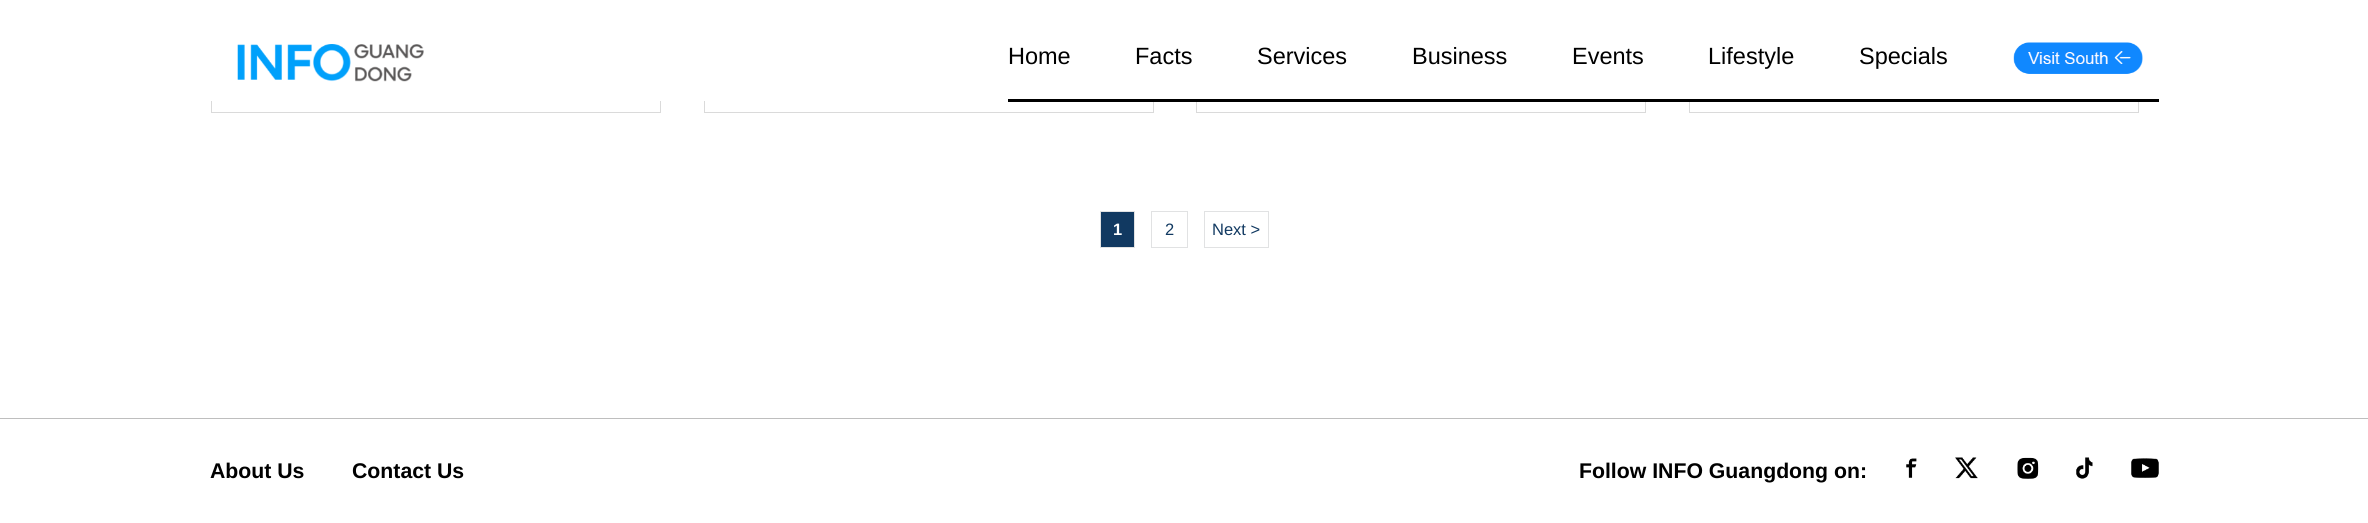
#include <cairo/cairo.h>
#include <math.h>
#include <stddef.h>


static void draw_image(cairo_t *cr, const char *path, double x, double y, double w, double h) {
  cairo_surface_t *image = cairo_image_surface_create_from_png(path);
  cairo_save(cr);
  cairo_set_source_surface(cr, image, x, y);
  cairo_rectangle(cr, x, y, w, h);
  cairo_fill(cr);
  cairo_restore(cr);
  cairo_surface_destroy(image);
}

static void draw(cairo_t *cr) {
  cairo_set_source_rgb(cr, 1, 1, 1);
  cairo_paint(cr);
  cairo_rectangle(cr, 211.5, -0.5, 449, 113);
  cairo_set_source_rgb(cr, 218 / 255.0, 218 / 255.0, 218 / 255.0);
  cairo_set_line_width(cr, 1);
  cairo_stroke(cr);
  cairo_rectangle(cr, 704.5, -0.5, 449, 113);
  cairo_stroke(cr);
  cairo_rectangle(cr, 1196.5, -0.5, 449, 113);
  cairo_stroke(cr);
  cairo_rectangle(cr, 1689.5, -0.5, 449, 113);
  cairo_stroke(cr);
  cairo_set_source_rgb(cr, 1, 1, 1);
  cairo_rectangle(cr, 211, 0, 1928, 101);
  cairo_fill(cr);
  draw_image(cr, "images/1.png", 237, 44, 187, 38);
  cairo_set_source_rgb(cr, 0, 0, 0);
  cairo_rectangle(cr, 1008, 99, 1151, 3);
  cairo_fill(cr);
  draw_image(cr, "images/2.png", 2013, 42, 130, 32);
  cairo_set_source_rgb(cr, 17 / 255.0, 57 / 255.0, 97 / 255.0);
  cairo_rectangle(cr, 1100.5, 211.5, 34, 36);
  cairo_fill_preserve(cr);
  cairo_set_source_rgb(cr, 225 / 255.0, 226 / 255.0, 227 / 255.0);
  cairo_stroke(cr);
  cairo_rectangle(cr, 1151.5, 211.5, 36, 36);
  cairo_stroke(cr);
  cairo_rectangle(cr, 1204.5, 211.5, 64, 36);
  cairo_stroke(cr);
  cairo_set_source_rgb(cr, 190 / 255.0, 190 / 255.0, 190 / 255.0);
  cairo_rectangle(cr, 0, 418, 2368, 1);
  cairo_fill(cr);
  draw_image(cr, "images/3.png", 1906, 458, 11, 20);
  draw_image(cr, "images/4.png", 1955, 457, 23, 22);
  draw_image(cr, "images/5.png", 2017, 457, 22, 22);
  draw_image(cr, "images/6.png", 2076, 457, 17, 22);
  draw_image(cr, "images/7.png", 2131, 458, 28, 20);
  cairo_select_font_face(cr, "Liberation Sans", CAIRO_FONT_SLANT_NORMAL, CAIRO_FONT_WEIGHT_NORMAL);
  cairo_set_font_size(cr, 23.5);
  cairo_set_source_rgb(cr, 0, 0, 0);
  cairo_move_to(cr, 1008, 64);
  cairo_show_text(cr, "Home");
  cairo_move_to(cr, 1135, 64);
  cairo_show_text(cr, "Facts");
  cairo_move_to(cr, 1257, 64);
  cairo_show_text(cr, "Services");
  cairo_move_to(cr, 1412, 64);
  cairo_show_text(cr, "Business");
  cairo_move_to(cr, 1572, 64);
  cairo_show_text(cr, "Events");
  cairo_move_to(cr, 1708, 64);
  cairo_show_text(cr, "Lifestyle");
  cairo_move_to(cr, 1859, 64);
  cairo_show_text(cr, "Specials");
  cairo_select_font_face(cr, "Liberation Sans", CAIRO_FONT_SLANT_NORMAL, CAIRO_FONT_WEIGHT_BOLD);
  cairo_set_font_size(cr, 16.5);
  cairo_set_source_rgb(cr, 1, 1, 1);
  cairo_move_to(cr, 1113, 235);
  cairo_show_text(cr, "1");
  cairo_select_font_face(cr, "Liberation Sans", CAIRO_FONT_SLANT_NORMAL, CAIRO_FONT_WEIGHT_NORMAL);
  cairo_set_source_rgb(cr, 17 / 255.0, 57 / 255.0, 97 / 255.0);
  cairo_move_to(cr, 1165, 235);
  cairo_show_text(cr, "2");
  cairo_move_to(cr, 1212, 235);
  cairo_show_text(cr, "Next >");
  cairo_select_font_face(cr, "Liberation Sans", CAIRO_FONT_SLANT_NORMAL, CAIRO_FONT_WEIGHT_BOLD);
  cairo_set_font_size(cr, 21.25);
  cairo_set_source_rgb(cr, 0, 0, 0);
  cairo_move_to(cr, 210, 478);
  cairo_show_text(cr, "About Us");
  cairo_move_to(cr, 352, 478);
  cairo_show_text(cr, "Contact Us");
  cairo_move_to(cr, 1579, 478);
  cairo_show_text(cr, "Follow INFO Guangdong on:");
}

int main(void) {
  cairo_surface_t *surface = cairo_image_surface_create(CAIRO_FORMAT_RGB24, 2368, 523);
  cairo_t *cr = cairo_create(surface);
  cairo_font_options_t *options = cairo_font_options_create();
  cairo_font_options_set_hint_metrics(options, CAIRO_HINT_METRICS_OFF);
  cairo_font_options_set_hint_style(options, CAIRO_HINT_STYLE_NONE);
  cairo_set_font_options(cr, options);
  cairo_set_miter_limit(cr, 4);
  draw(cr);
  cairo_surface_write_to_png(surface, "out.png");
  cairo_font_options_destroy(options);
  cairo_destroy(cr);
  cairo_surface_destroy(surface);
  return 0;
}
